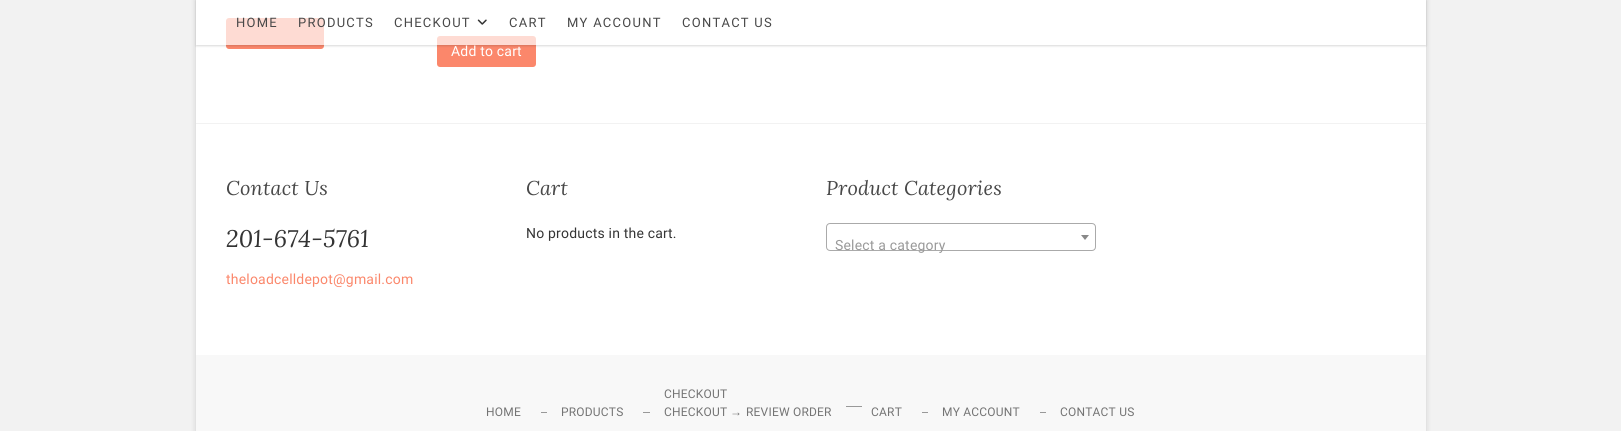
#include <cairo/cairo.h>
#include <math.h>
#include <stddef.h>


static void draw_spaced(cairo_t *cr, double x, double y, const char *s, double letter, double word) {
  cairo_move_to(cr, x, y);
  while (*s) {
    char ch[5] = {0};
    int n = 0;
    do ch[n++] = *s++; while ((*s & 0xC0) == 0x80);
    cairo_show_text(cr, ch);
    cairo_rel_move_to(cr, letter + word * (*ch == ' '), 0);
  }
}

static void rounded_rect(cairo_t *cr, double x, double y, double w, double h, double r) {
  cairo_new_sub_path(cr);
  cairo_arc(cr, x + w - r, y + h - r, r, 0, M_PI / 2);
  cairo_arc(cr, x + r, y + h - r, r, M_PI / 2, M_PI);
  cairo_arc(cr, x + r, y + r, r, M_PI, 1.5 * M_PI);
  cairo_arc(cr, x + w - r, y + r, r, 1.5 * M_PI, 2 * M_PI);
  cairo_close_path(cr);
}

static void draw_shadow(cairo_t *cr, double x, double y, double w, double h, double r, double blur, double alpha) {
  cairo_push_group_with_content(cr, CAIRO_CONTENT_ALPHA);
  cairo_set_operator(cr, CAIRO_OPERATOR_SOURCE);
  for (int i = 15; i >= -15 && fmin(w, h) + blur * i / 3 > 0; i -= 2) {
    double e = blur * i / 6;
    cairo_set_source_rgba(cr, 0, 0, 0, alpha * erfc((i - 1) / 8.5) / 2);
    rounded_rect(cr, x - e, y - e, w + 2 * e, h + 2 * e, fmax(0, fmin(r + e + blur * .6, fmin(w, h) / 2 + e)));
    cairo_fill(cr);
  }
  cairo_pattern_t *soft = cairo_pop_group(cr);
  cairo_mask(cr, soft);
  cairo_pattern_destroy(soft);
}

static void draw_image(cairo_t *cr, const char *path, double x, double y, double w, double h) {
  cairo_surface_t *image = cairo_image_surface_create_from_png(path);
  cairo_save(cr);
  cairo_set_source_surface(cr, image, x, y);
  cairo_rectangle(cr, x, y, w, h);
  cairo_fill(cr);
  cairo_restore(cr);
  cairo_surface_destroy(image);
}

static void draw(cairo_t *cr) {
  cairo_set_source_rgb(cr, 242 / 255.0, 242 / 255.0, 242 / 255.0);
  cairo_paint(cr);
  cairo_set_source_rgb(cr, 0, 0, 0);
  draw_shadow(cr, 196, -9, 1230, 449, 0, 3, 0.15);
  cairo_set_source_rgb(cr, 1, 1, 1);
  cairo_rectangle(cr, 196, 0, 1230, 355);
  cairo_fill(cr);
  cairo_set_source_rgb(cr, 251 / 255.0, 135 / 255.0, 107 / 255.0);
  rounded_rect(cr, 226, 18, 98, 31, 3);
  cairo_fill(cr);
  rounded_rect(cr, 437, 36, 99, 31, 3);
  cairo_fill(cr);
  cairo_save(cr);
  cairo_set_fill_rule(cr, CAIRO_FILL_RULE_EVEN_ODD);
  cairo_new_path(cr);
  cairo_move_to(cr, 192, 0);
  cairo_line_to(cr, 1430, 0);
  cairo_line_to(cr, 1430, 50);
  cairo_line_to(cr, 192, 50);
  cairo_close_path(cr);
  cairo_move_to(cr, 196, 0);
  cairo_line_to(cr, 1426, 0);
  cairo_line_to(cr, 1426, 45);
  cairo_line_to(cr, 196, 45);
  cairo_close_path(cr);
  cairo_clip(cr);
  cairo_set_source_rgb(cr, 0, 0, 0);
  draw_shadow(cr, 196, 1, 1230, 45, 0, 1, 0.15);
  cairo_restore(cr);
  cairo_set_source_rgba(cr, 1, 1, 1, 0.7);
  cairo_rectangle(cr, 226, 18, 310, 27);
  cairo_fill(cr);
  draw_image(cr, "images/1.png", 477, 19, 10, 6);
  cairo_set_source_rgb(cr, 242 / 255.0, 242 / 255.0, 242 / 255.0);
  cairo_rectangle(cr, 196, 123, 1230, 1);
  cairo_fill(cr);
  rounded_rect(cr, 826.5, 223.5, 269, 27, 3.5);
  cairo_set_source_rgb(cr, 170 / 255.0, 170 / 255.0, 170 / 255.0);
  cairo_set_line_width(cr, 1);
  cairo_stroke(cr);
  cairo_set_source_rgb(cr, 136 / 255.0, 136 / 255.0, 136 / 255.0);
  cairo_new_path(cr);
  cairo_move_to(cr, 1081, 235);
  cairo_line_to(cr, 1089, 235);
  cairo_line_to(cr, 1085, 240);
  cairo_close_path(cr);
  cairo_fill(cr);
  cairo_set_source_rgb(cr, 248 / 255.0, 248 / 255.0, 248 / 255.0);
  cairo_rectangle(cr, 196, 355, 1230, 76);
  cairo_fill(cr);
  cairo_set_source_rgb(cr, 153 / 255.0, 153 / 255.0, 153 / 255.0);
  cairo_rectangle(cr, 541, 412, 6, 1);
  cairo_fill(cr);
  cairo_rectangle(cr, 643, 412, 7, 1);
  cairo_fill(cr);
  cairo_rectangle(cr, 846, 406, 16, 1);
  cairo_fill(cr);
  cairo_rectangle(cr, 922, 412, 6, 1);
  cairo_fill(cr);
  cairo_rectangle(cr, 1040, 412, 6, 1);
  cairo_fill(cr);
  cairo_select_font_face(cr, "Roboto", CAIRO_FONT_SLANT_NORMAL, CAIRO_FONT_WEIGHT_NORMAL);
  cairo_set_font_size(cr, 13);
  cairo_set_source_rgb(cr, 72 / 255.0, 72 / 255.0, 72 / 255.0);
  draw_spaced(cr, 236, 27, "HOME", 1.25, 0);
  draw_spaced(cr, 298, 27, "PRODUCTS", 1.25, 0);
  draw_spaced(cr, 394, 27, "CHECKOUT", 1.25, 0);
  draw_spaced(cr, 509, 27, "CART", 1.25, 0);
  draw_spaced(cr, 567, 27, "MY ACCOUNT", 1.25, 0);
  draw_spaced(cr, 682, 27, "CONTACT US", 1.25, 0);
  cairo_set_font_size(cr, 14);
  cairo_set_source_rgb(cr, 1, 1, 1);
  draw_spaced(cr, 451, 56, "Add to cart", 0.2, 0);
  cairo_select_font_face(cr, "Lora", CAIRO_FONT_SLANT_ITALIC, CAIRO_FONT_WEIGHT_NORMAL);
  cairo_set_font_size(cr, 20);
  cairo_set_source_rgb(cr, 72 / 255.0, 72 / 255.0, 72 / 255.0);
  draw_spaced(cr, 226, 195, "Contact Us", 0.2, 0);
  cairo_set_font_size(cr, 24);
  cairo_set_source_rgb(cr, 52 / 255.0, 52 / 255.0, 52 / 255.0);
  draw_spaced(cr, 226, 247, "201-674-5761", 0.2, 0);
  cairo_select_font_face(cr, "Roboto", CAIRO_FONT_SLANT_NORMAL, CAIRO_FONT_WEIGHT_NORMAL);
  cairo_set_font_size(cr, 14);
  cairo_set_source_rgb(cr, 251 / 255.0, 135 / 255.0, 107 / 255.0);
  draw_spaced(cr, 226, 284, "theloadcelldepot@gmail.com", 0.2, 0);
  cairo_select_font_face(cr, "Lora", CAIRO_FONT_SLANT_ITALIC, CAIRO_FONT_WEIGHT_NORMAL);
  cairo_set_font_size(cr, 20);
  cairo_set_source_rgb(cr, 72 / 255.0, 72 / 255.0, 72 / 255.0);
  draw_spaced(cr, 526, 195, "Cart", 0.2, 0);
  cairo_select_font_face(cr, "Roboto", CAIRO_FONT_SLANT_NORMAL, CAIRO_FONT_WEIGHT_NORMAL);
  cairo_set_font_size(cr, 14);
  cairo_set_source_rgb(cr, 52 / 255.0, 52 / 255.0, 52 / 255.0);
  draw_spaced(cr, 526, 238, "No products in the cart.", 0.2, 0);
  cairo_select_font_face(cr, "Lora", CAIRO_FONT_SLANT_ITALIC, CAIRO_FONT_WEIGHT_NORMAL);
  cairo_set_font_size(cr, 20);
  cairo_set_source_rgb(cr, 72 / 255.0, 72 / 255.0, 72 / 255.0);
  draw_spaced(cr, 826, 195, "Product Categories", 0.2, 0);
  cairo_select_font_face(cr, "Roboto", CAIRO_FONT_SLANT_NORMAL, CAIRO_FONT_WEIGHT_NORMAL);
  cairo_set_font_size(cr, 14);
  cairo_set_source_rgb(cr, 153 / 255.0, 153 / 255.0, 153 / 255.0);
  draw_spaced(cr, 835, 250, "Select a category", 0.2, 0);
  cairo_set_font_size(cr, 12);
  cairo_set_source_rgb(cr, 116 / 255.0, 116 / 255.0, 116 / 255.0);
  draw_spaced(cr, 486, 416, "HOME", 0.2, 0);
  draw_spaced(cr, 561, 416, "PRODUCTS", 0.2, 0);
  draw_spaced(cr, 664, 398, "CHECKOUT", 0.2, 0);
  draw_spaced(cr, 664, 416, "CHECKOUT", 0.2, 0);
  cairo_select_font_face(cr, "Liberation Sans", CAIRO_FONT_SLANT_NORMAL, CAIRO_FONT_WEIGHT_NORMAL);
  draw_spaced(cr, 730, 416, "→", 0.2, 0);
  cairo_select_font_face(cr, "Roboto", CAIRO_FONT_SLANT_NORMAL, CAIRO_FONT_WEIGHT_NORMAL);
  draw_spaced(cr, 746, 416, "REVIEW ORDER", 0.2, 0);
  draw_spaced(cr, 871, 416, "CART", 0.2, 0);
  draw_spaced(cr, 942, 416, "MY ACCOUNT", 0.2, 0);
  draw_spaced(cr, 1060, 416, "CONTACT US", 0.2, 0);
}

int main(void) {
  cairo_surface_t *surface = cairo_image_surface_create(CAIRO_FORMAT_RGB24, 1621, 431);
  cairo_t *cr = cairo_create(surface);
  cairo_font_options_t *options = cairo_font_options_create();
  cairo_font_options_set_hint_metrics(options, CAIRO_HINT_METRICS_OFF);
  cairo_font_options_set_hint_style(options, CAIRO_HINT_STYLE_NONE);
  cairo_set_font_options(cr, options);
  cairo_set_miter_limit(cr, 4);
  draw(cr);
  cairo_surface_write_to_png(surface, "out.png");
  cairo_font_options_destroy(options);
  cairo_destroy(cr);
  cairo_surface_destroy(surface);
  return 0;
}
